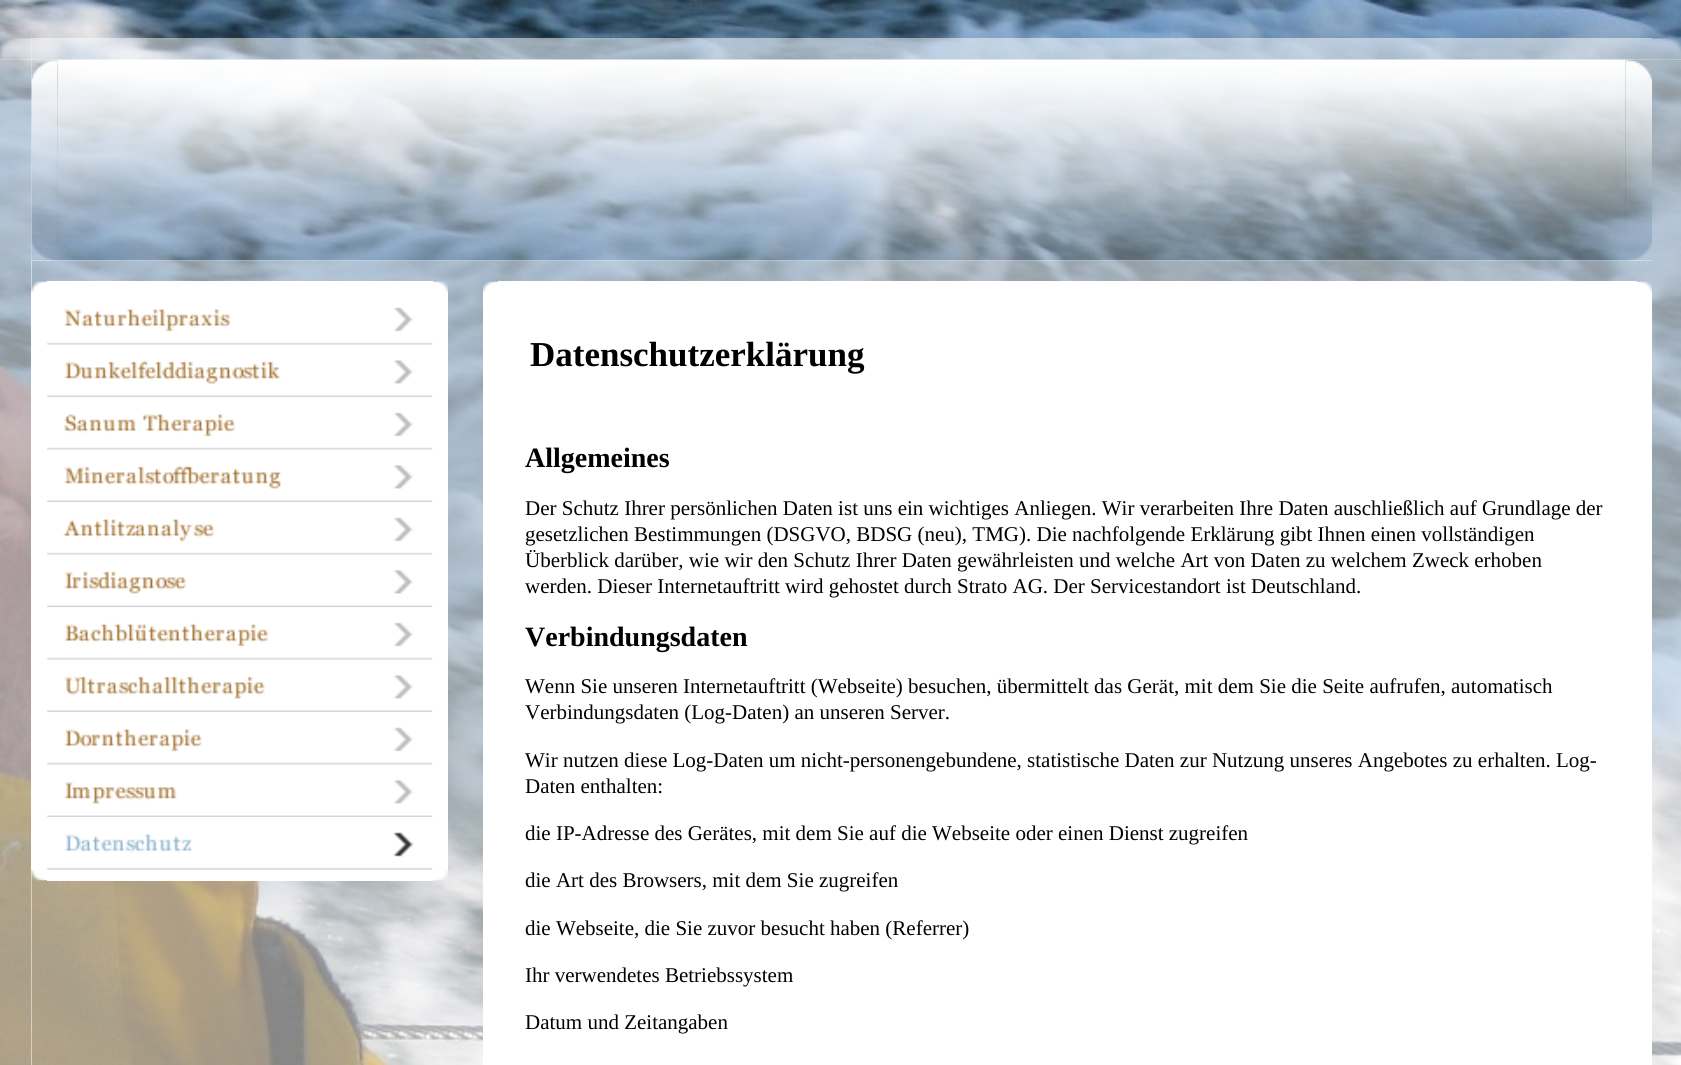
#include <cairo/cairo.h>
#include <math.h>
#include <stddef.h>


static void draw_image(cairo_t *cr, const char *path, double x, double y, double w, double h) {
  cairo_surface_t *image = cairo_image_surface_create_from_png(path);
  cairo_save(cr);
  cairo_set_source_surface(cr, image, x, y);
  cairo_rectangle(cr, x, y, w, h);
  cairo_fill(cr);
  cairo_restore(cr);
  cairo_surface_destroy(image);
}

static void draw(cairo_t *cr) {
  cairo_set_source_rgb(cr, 1, 1, 1);
  cairo_paint(cr);
  draw_image(cr, "images/1.png", 0, 0, 1681, 1065);
  cairo_set_source_rgba(cr, 1, 1, 1, 0.5);
  cairo_rectangle(cr, 31, 38, 1621, 22);
  cairo_fill(cr);
  cairo_rectangle(cr, 0, 59, 32, 1006);
  cairo_fill(cr);
  draw_image(cr, "images/2.png", 0, 38, 32, 22);
  cairo_rectangle(cr, 1652, 59, 29, 1006);
  cairo_fill(cr);
  draw_image(cr, "images/3.png", 1652, 38, 29, 22);
  draw_image(cr, "images/5.png", 57, 59, 1569, 202);
  cairo_rectangle(cr, 31, 260, 417, 805);
  cairo_fill(cr);
  draw_image(cr, "images/4.png", 31, 59, 27, 202);
  cairo_rectangle(cr, 448, 260, 1204, 805);
  cairo_fill(cr);
  draw_image(cr, "images/6.png", 1625, 59, 27, 202);
  draw_image(cr, "images/7.png", 31, 281, 16, 11);
  cairo_set_source_rgb(cr, 1, 1, 1);
  cairo_rectangle(cr, 47, 281, 386, 12);
  cairo_fill(cr);
  draw_image(cr, "images/8.png", 433, 281, 15, 11);
  cairo_rectangle(cr, 31, 292, 17, 578);
  cairo_fill(cr);
  cairo_rectangle(cr, 48, 293, 385, 577);
  cairo_fill(cr);
  draw_image(cr, "images/9.png", 47, 307, 386, 38);
  draw_image(cr, "images/10.png", 47, 344, 386, 54);
  draw_image(cr, "images/11.png", 47, 397, 386, 53);
  draw_image(cr, "images/12.png", 47, 449, 386, 54);
  draw_image(cr, "images/13.png", 47, 502, 386, 53);
  draw_image(cr, "images/14.png", 47, 554, 386, 54);
  draw_image(cr, "images/15.png", 47, 607, 386, 53);
  draw_image(cr, "images/16.png", 47, 659, 386, 54);
  draw_image(cr, "images/17.png", 47, 712, 386, 53);
  draw_image(cr, "images/18.png", 47, 764, 386, 54);
  draw_image(cr, "images/19.png", 47, 817, 386, 53);
  cairo_rectangle(cr, 433, 292, 15, 578);
  cairo_fill(cr);
  draw_image(cr, "images/20.png", 31, 870, 16, 11);
  cairo_rectangle(cr, 47, 870, 386, 11);
  cairo_fill(cr);
  draw_image(cr, "images/21.png", 433, 870, 15, 11);
  draw_image(cr, "images/22.png", 483, 281, 15, 11);
  cairo_rectangle(cr, 498, 281, 1139, 12);
  cairo_fill(cr);
  draw_image(cr, "images/23.png", 1637, 281, 15, 11);
  cairo_rectangle(cr, 483, 292, 16, 773);
  cairo_fill(cr);
  cairo_rectangle(cr, 499, 293, 1138, 772);
  cairo_fill(cr);
  cairo_rectangle(cr, 1637, 292, 15, 773);
  cairo_fill(cr);
  cairo_select_font_face(cr, "Liberation Serif", CAIRO_FONT_SLANT_NORMAL, CAIRO_FONT_WEIGHT_BOLD);
  cairo_set_font_size(cr, 35);
  cairo_set_source_rgb(cr, 0, 0, 0);
  cairo_move_to(cr, 530, 366);
  cairo_show_text(cr, "Datenschutzerklärung");
  cairo_set_font_size(cr, 28);
  cairo_move_to(cr, 525, 467);
  cairo_show_text(cr, "Allgemeines");
  cairo_select_font_face(cr, "Liberation Serif", CAIRO_FONT_SLANT_NORMAL, CAIRO_FONT_WEIGHT_NORMAL);
  cairo_set_font_size(cr, 21);
  cairo_move_to(cr, 525, 515);
  cairo_show_text(cr, "Der Schutz Ihrer persönlichen Daten ist uns ein wichtiges Anliegen. Wir verarbeiten Ihre Daten auschließlich auf Grundlage der");
  cairo_move_to(cr, 525, 541);
  cairo_show_text(cr, "gesetzlichen Bestimmungen (DSGVO, BDSG (neu), TMG). Die nachfolgende Erklärung gibt Ihnen einen vollständigen");
  cairo_move_to(cr, 525, 567);
  cairo_show_text(cr, "Überblick darüber, wie wir den Schutz Ihrer Daten gewährleisten und welche Art von Daten zu welchem Zweck erhoben");
  cairo_move_to(cr, 525, 593);
  cairo_show_text(cr, "werden. Dieser Internetauftritt wird gehostet durch Strato AG. Der Servicestandort ist Deutschland.");
  cairo_select_font_face(cr, "Liberation Serif", CAIRO_FONT_SLANT_NORMAL, CAIRO_FONT_WEIGHT_BOLD);
  cairo_set_font_size(cr, 28);
  cairo_move_to(cr, 525, 646);
  cairo_show_text(cr, "Verbindungsdaten");
  cairo_select_font_face(cr, "Liberation Serif", CAIRO_FONT_SLANT_NORMAL, CAIRO_FONT_WEIGHT_NORMAL);
  cairo_set_font_size(cr, 21);
  cairo_move_to(cr, 525, 693);
  cairo_show_text(cr, "Wenn Sie unseren Internetauftritt (Webseite) besuchen, übermittelt das Gerät, mit dem Sie die Seite aufrufen, automatisch");
  cairo_move_to(cr, 525, 719);
  cairo_show_text(cr, "Verbindungsdaten (Log-Daten) an unseren Server.");
  cairo_move_to(cr, 525, 767);
  cairo_show_text(cr, "Wir nutzen diese Log-Daten um nicht-personengebundene, statistische Daten zur Nutzung unseres Angebotes zu erhalten. Log-");
  cairo_move_to(cr, 525, 793);
  cairo_show_text(cr, "Daten enthalten:");
  cairo_move_to(cr, 525, 840);
  cairo_show_text(cr, "die IP-Adresse des Gerätes, mit dem Sie auf die Webseite oder einen Dienst zugreifen");
  cairo_move_to(cr, 525, 887);
  cairo_show_text(cr, "die Art des Browsers, mit dem Sie zugreifen");
  cairo_move_to(cr, 525, 935);
  cairo_show_text(cr, "die Webseite, die Sie zuvor besucht haben (Referrer)");
  cairo_move_to(cr, 525, 982);
  cairo_show_text(cr, "Ihr verwendetes Betriebssystem");
  cairo_move_to(cr, 525, 1029);
  cairo_show_text(cr, "Datum und Zeitangaben");
}

int main(void) {
  cairo_surface_t *surface = cairo_image_surface_create(CAIRO_FORMAT_RGB24, 1681, 1065);
  cairo_t *cr = cairo_create(surface);
  cairo_font_options_t *options = cairo_font_options_create();
  cairo_font_options_set_hint_metrics(options, CAIRO_HINT_METRICS_OFF);
  cairo_font_options_set_hint_style(options, CAIRO_HINT_STYLE_NONE);
  cairo_set_font_options(cr, options);
  cairo_set_miter_limit(cr, 4);
  draw(cr);
  cairo_surface_write_to_png(surface, "out.png");
  cairo_font_options_destroy(options);
  cairo_destroy(cr);
  cairo_surface_destroy(surface);
  return 0;
}
